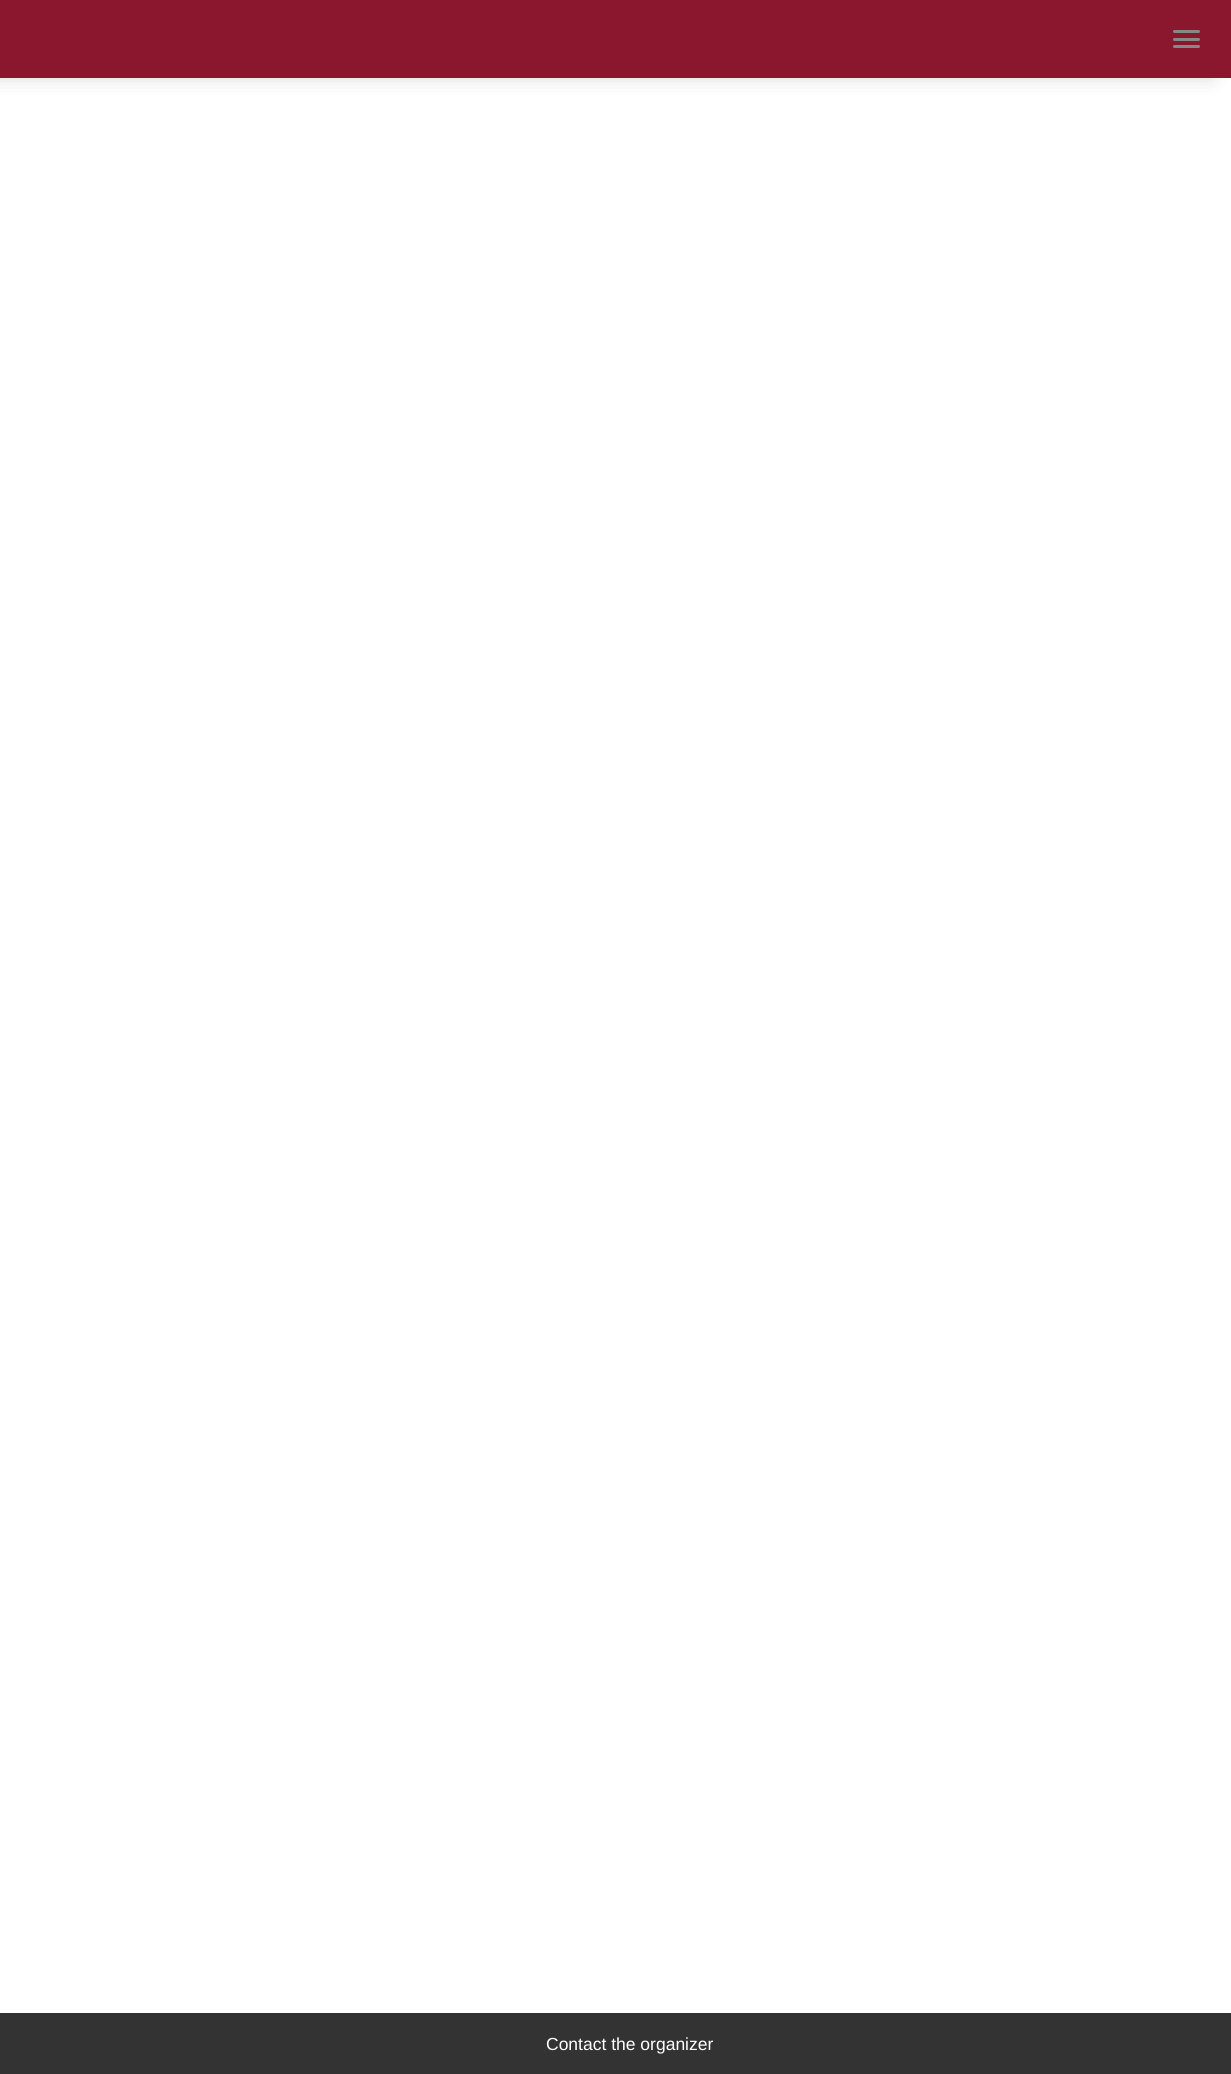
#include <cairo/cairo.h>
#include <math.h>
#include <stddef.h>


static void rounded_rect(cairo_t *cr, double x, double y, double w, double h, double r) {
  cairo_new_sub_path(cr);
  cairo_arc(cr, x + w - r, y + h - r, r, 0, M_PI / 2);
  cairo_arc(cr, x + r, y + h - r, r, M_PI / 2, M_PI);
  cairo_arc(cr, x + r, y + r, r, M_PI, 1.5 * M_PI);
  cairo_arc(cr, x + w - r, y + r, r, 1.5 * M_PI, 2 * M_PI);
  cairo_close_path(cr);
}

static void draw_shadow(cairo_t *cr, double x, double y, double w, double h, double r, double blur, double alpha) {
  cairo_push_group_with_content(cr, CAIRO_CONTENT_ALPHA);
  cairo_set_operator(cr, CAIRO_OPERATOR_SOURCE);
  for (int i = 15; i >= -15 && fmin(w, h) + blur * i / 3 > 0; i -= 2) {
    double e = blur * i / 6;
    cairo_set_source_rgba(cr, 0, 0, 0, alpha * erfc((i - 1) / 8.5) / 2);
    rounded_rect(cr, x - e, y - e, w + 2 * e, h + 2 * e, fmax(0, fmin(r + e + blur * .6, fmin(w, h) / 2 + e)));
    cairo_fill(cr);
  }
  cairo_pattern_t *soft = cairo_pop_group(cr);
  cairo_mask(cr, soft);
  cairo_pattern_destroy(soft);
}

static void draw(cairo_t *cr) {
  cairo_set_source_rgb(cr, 1, 1, 1);
  cairo_paint(cr);
  cairo_set_source_rgb(cr, 0, 0, 0);
  draw_shadow(cr, -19, 0, 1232, 78, 0, 9.5, 0.15);
  cairo_set_source_rgb(cr, 139 / 255.0, 23 / 255.0, 47 / 255.0);
  cairo_rectangle(cr, 0, 0, 1231, 78);
  cairo_fill(cr);
  cairo_set_source_rgb(cr, 136 / 255.0, 136 / 255.0, 136 / 255.0);
  rounded_rect(cr, 1173, 30, 27, 3, 1.5);
  cairo_fill(cr);
  rounded_rect(cr, 1173, 38, 27, 3, 1.5);
  cairo_fill(cr);
  rounded_rect(cr, 1173, 45, 27, 3, 1.5);
  cairo_fill(cr);
  cairo_set_source_rgb(cr, 51 / 255.0, 51 / 255.0, 51 / 255.0);
  cairo_rectangle(cr, 0, 2013, 1231, 61);
  cairo_fill(cr);
  cairo_select_font_face(cr, "Liberation Sans", CAIRO_FONT_SLANT_NORMAL, CAIRO_FONT_WEIGHT_NORMAL);
  cairo_set_font_size(cr, 17.5);
  cairo_set_source_rgb(cr, 1, 1, 1);
  cairo_move_to(cr, 546, 2050);
  cairo_show_text(cr, "Contact the organizer");
}

int main(void) {
  cairo_surface_t *surface = cairo_image_surface_create(CAIRO_FORMAT_RGB24, 1231, 2074);
  cairo_t *cr = cairo_create(surface);
  cairo_font_options_t *options = cairo_font_options_create();
  cairo_font_options_set_hint_metrics(options, CAIRO_HINT_METRICS_OFF);
  cairo_font_options_set_hint_style(options, CAIRO_HINT_STYLE_NONE);
  cairo_set_font_options(cr, options);
  cairo_set_miter_limit(cr, 4);
  draw(cr);
  cairo_surface_write_to_png(surface, "out.png");
  cairo_font_options_destroy(options);
  cairo_destroy(cr);
  cairo_surface_destroy(surface);
  return 0;
}
